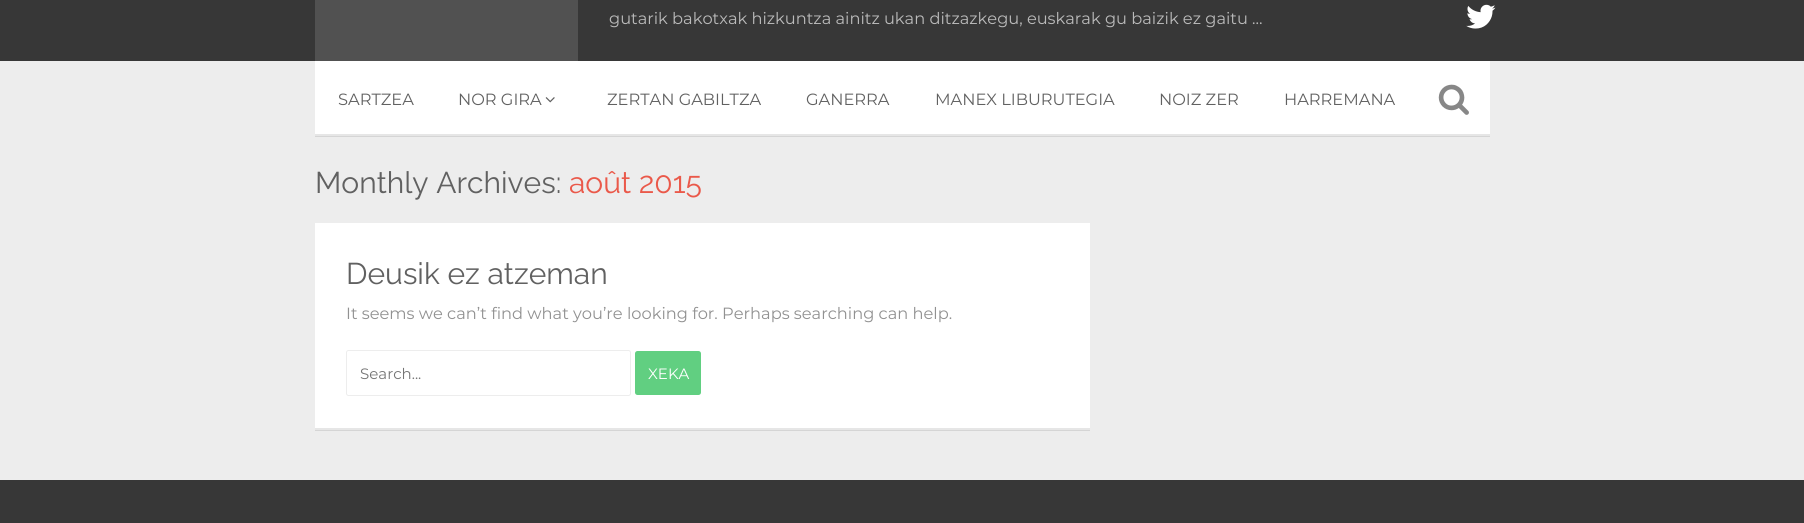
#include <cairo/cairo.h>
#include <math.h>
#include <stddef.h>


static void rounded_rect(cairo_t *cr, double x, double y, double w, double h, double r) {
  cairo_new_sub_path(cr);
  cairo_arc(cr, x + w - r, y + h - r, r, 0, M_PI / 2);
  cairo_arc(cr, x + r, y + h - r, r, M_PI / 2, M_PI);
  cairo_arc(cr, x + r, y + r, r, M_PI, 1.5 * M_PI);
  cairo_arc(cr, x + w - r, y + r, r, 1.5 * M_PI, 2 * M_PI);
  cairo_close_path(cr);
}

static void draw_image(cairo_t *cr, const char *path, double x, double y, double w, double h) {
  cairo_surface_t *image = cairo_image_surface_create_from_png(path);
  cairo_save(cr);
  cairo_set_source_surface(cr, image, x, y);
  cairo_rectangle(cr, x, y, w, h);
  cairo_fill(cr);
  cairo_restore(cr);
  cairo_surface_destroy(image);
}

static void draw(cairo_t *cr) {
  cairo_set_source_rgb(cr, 237 / 255.0, 237 / 255.0, 237 / 255.0);
  cairo_paint(cr);
  cairo_set_source_rgb(cr, 213 / 255.0, 213 / 255.0, 213 / 255.0);
  cairo_rectangle(cr, 315, 430, 775, 1);
  cairo_fill(cr);
  cairo_rectangle(cr, 315, 136, 1175, 1);
  cairo_fill(cr);
  cairo_set_source_rgb(cr, 55 / 255.0, 55 / 255.0, 55 / 255.0);
  cairo_rectangle(cr, 0, 0, 1804, 61);
  cairo_fill(cr);
  cairo_set_source_rgb(cr, 81 / 255.0, 81 / 255.0, 81 / 255.0);
  cairo_rectangle(cr, 315, 0, 263, 61);
  cairo_fill(cr);
  draw_image(cr, "images/1.png", 1466, 4, 30, 25);
  cairo_set_source_rgb(cr, 1, 1, 1);
  cairo_rectangle(cr, 315, 61, 1175, 73);
  cairo_fill(cr);
  cairo_set_source_rgb(cr, 230 / 255.0, 230 / 255.0, 230 / 255.0);
  cairo_rectangle(cr, 315, 134, 1175, 2);
  cairo_fill(cr);
  draw_image(cr, "images/2.png", 545, 97, 10, 6);
  draw_image(cr, "images/3.png", 1438, 84, 31, 31);
  cairo_set_source_rgb(cr, 1, 1, 1);
  cairo_rectangle(cr, 315, 223, 775, 205);
  cairo_fill(cr);
  cairo_set_source_rgb(cr, 230 / 255.0, 230 / 255.0, 230 / 255.0);
  cairo_rectangle(cr, 315, 428, 775, 2);
  cairo_fill(cr);
  rounded_rect(cr, 346.5, 350.5, 284, 45, 2);
  cairo_set_source_rgb(cr, 237 / 255.0, 237 / 255.0, 237 / 255.0);
  cairo_set_line_width(cr, 1);
  cairo_stroke(cr);
  cairo_set_source_rgb(cr, 97 / 255.0, 207 / 255.0, 129 / 255.0);
  rounded_rect(cr, 635, 351, 66, 44, 2.5);
  cairo_fill(cr);
  cairo_set_source_rgb(cr, 55 / 255.0, 55 / 255.0, 55 / 255.0);
  cairo_rectangle(cr, 0, 480, 1804, 43);
  cairo_fill(cr);
  cairo_select_font_face(cr, "Montserrat", CAIRO_FONT_SLANT_NORMAL, CAIRO_FONT_WEIGHT_NORMAL);
  cairo_set_font_size(cr, 16.25);
  cairo_set_source_rgb(cr, 187 / 255.0, 187 / 255.0, 187 / 255.0);
  cairo_move_to(cr, 609, 24);
  cairo_show_text(cr, "gutarik bakotxak hizkuntza ainitz ukan ditzazkegu, euskarak gu baizik ez gaitu …");
  cairo_set_source_rgb(cr, 97 / 255.0, 97 / 255.0, 97 / 255.0);
  cairo_move_to(cr, 338, 105);
  cairo_show_text(cr, "SARTZEA");
  cairo_move_to(cr, 458, 105);
  cairo_show_text(cr, "NOR GIRA");
  cairo_move_to(cr, 607, 105);
  cairo_show_text(cr, "ZERTAN GABILTZA");
  cairo_move_to(cr, 806, 105);
  cairo_show_text(cr, "GANERRA");
  cairo_move_to(cr, 935, 105);
  cairo_show_text(cr, "MANEX LIBURUTEGIA");
  cairo_move_to(cr, 1159, 105);
  cairo_show_text(cr, "NOIZ ZER");
  cairo_move_to(cr, 1284, 105);
  cairo_show_text(cr, "HARREMANA");
  cairo_select_font_face(cr, "Raleway", CAIRO_FONT_SLANT_NORMAL, CAIRO_FONT_WEIGHT_NORMAL);
  cairo_set_font_size(cr, 30);
  cairo_move_to(cr, 315, 193);
  cairo_show_text(cr, "Monthly Archives:");
  cairo_set_source_rgb(cr, 234 / 255.0, 89 / 255.0, 74 / 255.0);
  cairo_move_to(cr, 569, 193);
  cairo_show_text(cr, "août 2015");
  cairo_set_source_rgb(cr, 97 / 255.0, 97 / 255.0, 97 / 255.0);
  cairo_move_to(cr, 346, 284);
  cairo_show_text(cr, "Deusik ez atzeman");
  cairo_select_font_face(cr, "Montserrat", CAIRO_FONT_SLANT_NORMAL, CAIRO_FONT_WEIGHT_NORMAL);
  cairo_set_font_size(cr, 16.25);
  cairo_set_source_rgb(cr, 145 / 255.0, 145 / 255.0, 145 / 255.0);
  cairo_move_to(cr, 346, 319);
  cairo_show_text(cr, "It seems we can’t find what you’re looking for. Perhaps searching can help.");
  cairo_set_font_size(cr, 15);
  cairo_set_source_rgb(cr, 117 / 255.0, 117 / 255.0, 117 / 255.0);
  cairo_move_to(cr, 360, 379);
  cairo_show_text(cr, "Search...");
  cairo_set_source_rgb(cr, 1, 1, 1);
  cairo_move_to(cr, 648, 379);
  cairo_show_text(cr, "XEKA");
}

int main(void) {
  cairo_surface_t *surface = cairo_image_surface_create(CAIRO_FORMAT_RGB24, 1804, 523);
  cairo_t *cr = cairo_create(surface);
  cairo_font_options_t *options = cairo_font_options_create();
  cairo_font_options_set_hint_metrics(options, CAIRO_HINT_METRICS_OFF);
  cairo_font_options_set_hint_style(options, CAIRO_HINT_STYLE_NONE);
  cairo_set_font_options(cr, options);
  cairo_set_miter_limit(cr, 4);
  draw(cr);
  cairo_surface_write_to_png(surface, "out.png");
  cairo_font_options_destroy(options);
  cairo_destroy(cr);
  cairo_surface_destroy(surface);
  return 0;
}
